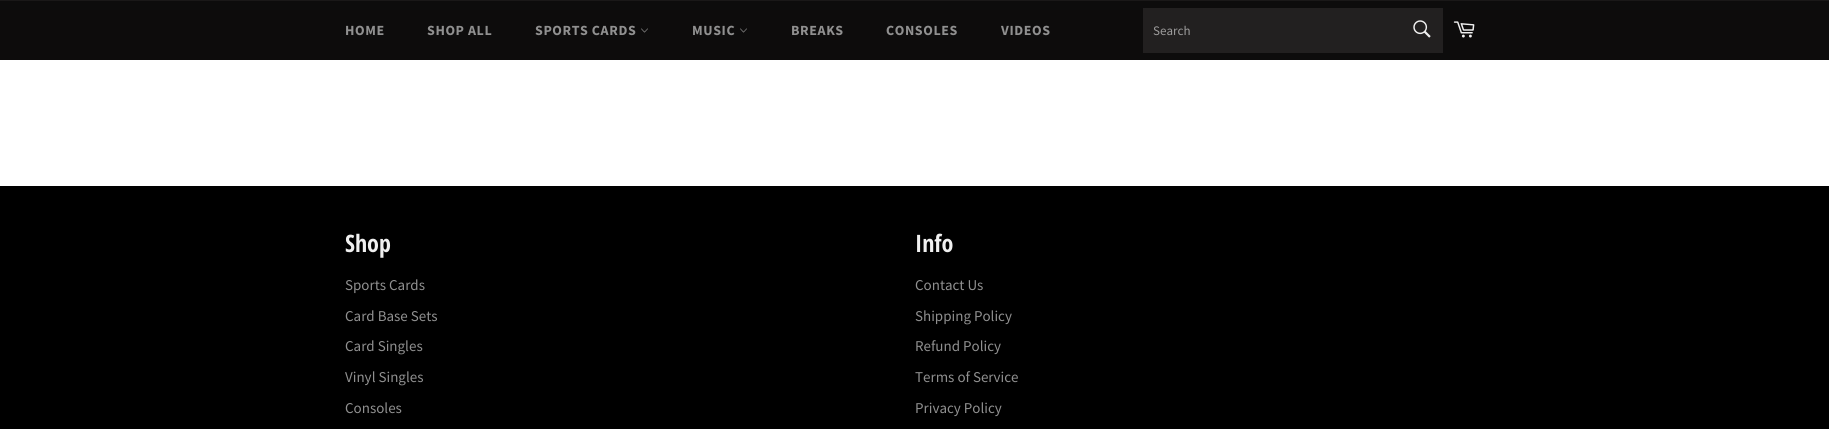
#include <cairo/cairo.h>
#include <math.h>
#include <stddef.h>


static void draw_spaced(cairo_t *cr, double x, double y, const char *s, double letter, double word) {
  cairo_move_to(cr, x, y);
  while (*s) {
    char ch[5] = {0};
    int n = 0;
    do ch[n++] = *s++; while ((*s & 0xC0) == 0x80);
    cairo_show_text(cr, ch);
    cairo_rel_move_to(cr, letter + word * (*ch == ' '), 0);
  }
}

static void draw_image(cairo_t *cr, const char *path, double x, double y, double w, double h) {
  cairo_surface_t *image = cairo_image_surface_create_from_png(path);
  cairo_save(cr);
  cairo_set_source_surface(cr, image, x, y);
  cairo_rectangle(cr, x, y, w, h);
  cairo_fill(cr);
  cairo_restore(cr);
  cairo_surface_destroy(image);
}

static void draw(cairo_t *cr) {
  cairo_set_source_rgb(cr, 1, 1, 1);
  cairo_paint(cr);
  cairo_set_source_rgb(cr, 13 / 255.0, 12 / 255.0, 12 / 255.0);
  cairo_rectangle(cr, 0, 1, 1829, 59);
  cairo_fill(cr);
  cairo_set_source_rgb(cr, 26 / 255.0, 24 / 255.0, 24 / 255.0);
  cairo_rectangle(cr, 0, 0, 1829, 1);
  cairo_fill(cr);
  draw_image(cr, "images/1.png", 641, 28, 7, 5);
  draw_image(cr, "images/1.png", 740, 28, 7, 5);
  cairo_set_source_rgb(cr, 34 / 255.0, 32 / 255.0, 32 / 255.0);
  cairo_rectangle(cr, 1143, 8, 300, 45);
  cairo_fill(cr);
  draw_image(cr, "images/2.png", 1413, 20, 18, 18);
  draw_image(cr, "images/3.png", 1453, 21, 22, 17);
  cairo_set_source_rgb(cr, 0, 0, 0);
  cairo_rectangle(cr, 0, 186, 1829, 243);
  cairo_fill(cr);
  cairo_select_font_face(cr, "Source Sans Pro", CAIRO_FONT_SLANT_NORMAL, CAIRO_FONT_WEIGHT_BOLD);
  cairo_set_font_size(cr, 14);
  cairo_set_source_rgb(cr, 144 / 255.0, 144 / 255.0, 144 / 255.0);
  draw_spaced(cr, 345, 35, "HOME", 0.6, 0);
  draw_spaced(cr, 427, 35, "SHOP ALL", 0.6, 0);
  draw_spaced(cr, 535, 35, "SPORTS CARDS", 0.6, 0);
  draw_spaced(cr, 692, 35, "MUSIC", 0.6, 0);
  draw_spaced(cr, 791, 35, "BREAKS", 0.6, 0);
  draw_spaced(cr, 886, 35, "CONSOLES", 0.6, 0);
  draw_spaced(cr, 1001, 35, "VIDEOS", 0.6, 0);
  cairo_select_font_face(cr, "Source Sans Pro", CAIRO_FONT_SLANT_NORMAL, CAIRO_FONT_WEIGHT_NORMAL);
  cairo_set_font_size(cr, 13);
  cairo_set_source_rgb(cr, 158 / 255.0, 157 / 255.0, 157 / 255.0);
  cairo_move_to(cr, 1153, 35);
  cairo_show_text(cr, "Search");
  cairo_select_font_face(cr, "Open Sans Condensed", CAIRO_FONT_SLANT_NORMAL, CAIRO_FONT_WEIGHT_BOLD);
  cairo_set_font_size(cr, 24);
  cairo_set_source_rgb(cr, 240 / 255.0, 240 / 255.0, 240 / 255.0);
  cairo_move_to(cr, 345, 252);
  cairo_show_text(cr, "Shop");
  cairo_select_font_face(cr, "Source Sans Pro", CAIRO_FONT_SLANT_NORMAL, CAIRO_FONT_WEIGHT_NORMAL);
  cairo_set_font_size(cr, 15);
  cairo_set_source_rgb(cr, 144 / 255.0, 144 / 255.0, 144 / 255.0);
  cairo_move_to(cr, 345, 290);
  cairo_show_text(cr, "Sports Cards");
  cairo_move_to(cr, 345, 321);
  cairo_show_text(cr, "Card Base Sets");
  cairo_move_to(cr, 345, 351);
  cairo_show_text(cr, "Card Singles");
  cairo_move_to(cr, 345, 382);
  cairo_show_text(cr, "Vinyl Singles");
  cairo_move_to(cr, 345, 413);
  cairo_show_text(cr, "Consoles");
  cairo_select_font_face(cr, "Open Sans Condensed", CAIRO_FONT_SLANT_NORMAL, CAIRO_FONT_WEIGHT_BOLD);
  cairo_set_font_size(cr, 24);
  cairo_set_source_rgb(cr, 240 / 255.0, 240 / 255.0, 240 / 255.0);
  cairo_move_to(cr, 915, 252);
  cairo_show_text(cr, "Info");
  cairo_select_font_face(cr, "Source Sans Pro", CAIRO_FONT_SLANT_NORMAL, CAIRO_FONT_WEIGHT_NORMAL);
  cairo_set_font_size(cr, 15);
  cairo_set_source_rgb(cr, 144 / 255.0, 144 / 255.0, 144 / 255.0);
  cairo_move_to(cr, 915, 290);
  cairo_show_text(cr, "Contact Us");
  cairo_move_to(cr, 915, 321);
  cairo_show_text(cr, "Shipping Policy");
  cairo_move_to(cr, 915, 351);
  cairo_show_text(cr, "Refund Policy");
  cairo_move_to(cr, 915, 382);
  cairo_show_text(cr, "Terms of Service");
  cairo_move_to(cr, 915, 413);
  cairo_show_text(cr, "Privacy Policy");
}

int main(void) {
  cairo_surface_t *surface = cairo_image_surface_create(CAIRO_FORMAT_RGB24, 1829, 429);
  cairo_t *cr = cairo_create(surface);
  cairo_font_options_t *options = cairo_font_options_create();
  cairo_font_options_set_hint_metrics(options, CAIRO_HINT_METRICS_OFF);
  cairo_font_options_set_hint_style(options, CAIRO_HINT_STYLE_NONE);
  cairo_set_font_options(cr, options);
  cairo_set_miter_limit(cr, 4);
  draw(cr);
  cairo_surface_write_to_png(surface, "out.png");
  cairo_font_options_destroy(options);
  cairo_destroy(cr);
  cairo_surface_destroy(surface);
  return 0;
}
